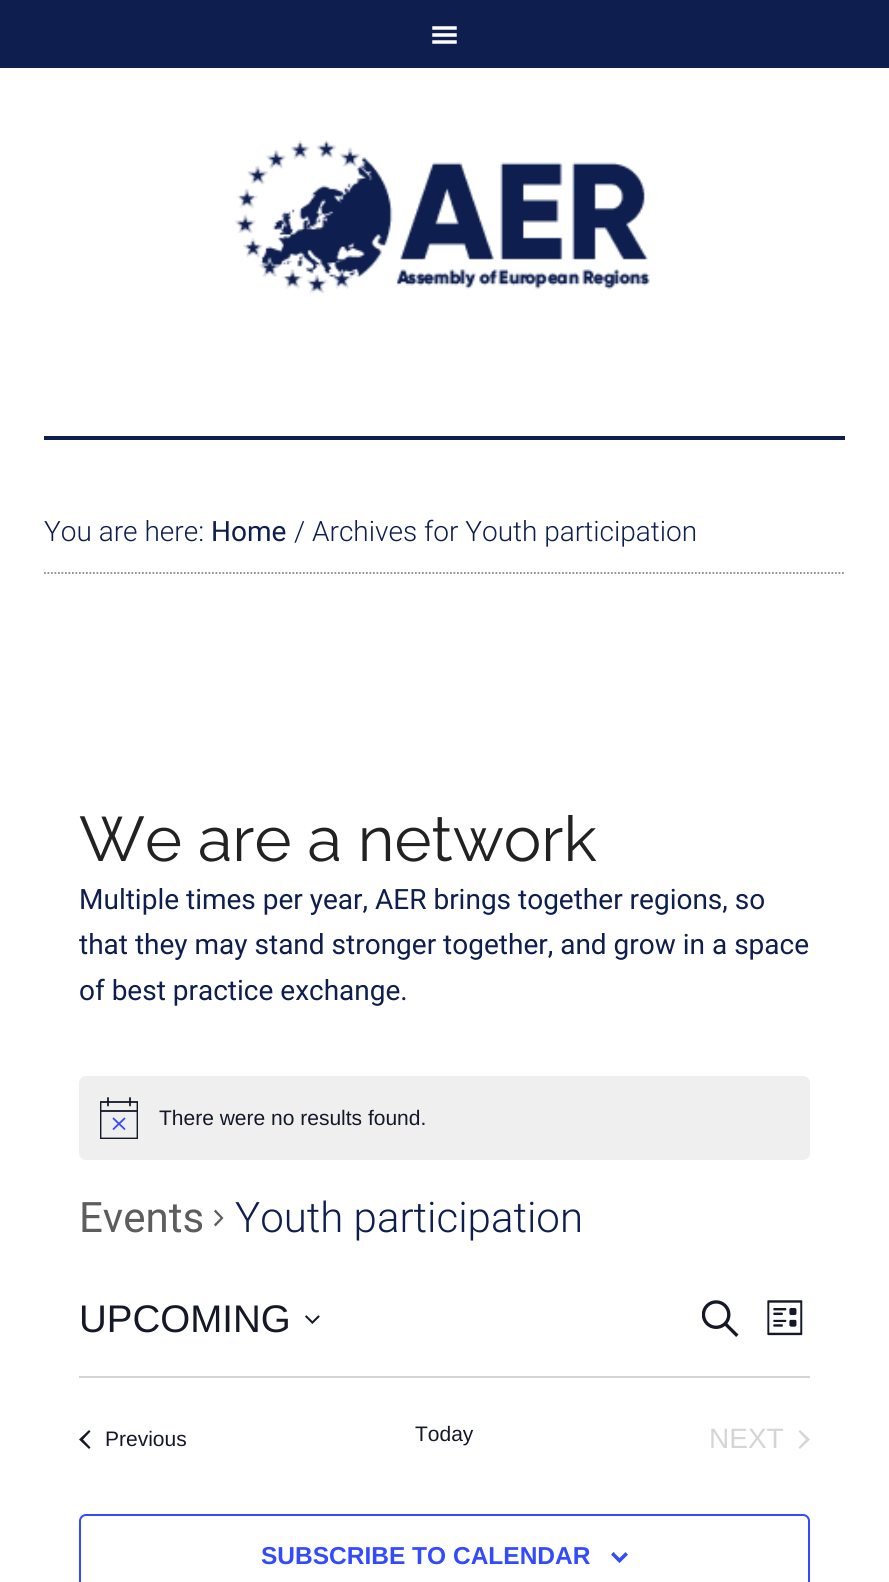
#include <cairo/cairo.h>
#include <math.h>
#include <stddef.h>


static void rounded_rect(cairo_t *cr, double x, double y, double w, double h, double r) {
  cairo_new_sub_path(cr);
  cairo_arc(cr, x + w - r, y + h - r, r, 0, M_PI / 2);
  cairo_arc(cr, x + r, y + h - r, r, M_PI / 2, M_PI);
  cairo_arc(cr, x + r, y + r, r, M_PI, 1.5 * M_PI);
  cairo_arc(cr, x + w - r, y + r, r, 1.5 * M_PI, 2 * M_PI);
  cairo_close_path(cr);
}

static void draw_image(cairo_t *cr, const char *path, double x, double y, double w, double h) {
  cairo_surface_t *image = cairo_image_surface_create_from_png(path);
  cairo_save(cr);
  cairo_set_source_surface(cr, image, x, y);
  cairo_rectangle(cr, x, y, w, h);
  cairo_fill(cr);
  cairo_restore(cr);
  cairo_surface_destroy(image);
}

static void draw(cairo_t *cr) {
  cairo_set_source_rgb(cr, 1, 1, 1);
  cairo_paint(cr);
  cairo_set_source_rgb(cr, 13 / 255.0, 30 / 255.0, 79 / 255.0);
  cairo_rectangle(cr, 0, 0, 889, 68);
  cairo_fill(cr);
  draw_image(cr, "images/1.png", 432, 26, 25, 18);
  cairo_rectangle(cr, 44, 436, 801, 4);
  cairo_fill(cr);
  draw_image(cr, "images/2.png", 234, 139, 416, 155);
  cairo_new_path(cr);
  cairo_move_to(cr, 44, 573);
  cairo_line_to(cr, 845, 573);
  cairo_set_source_rgb(cr, 136 / 255.0, 136 / 255.0, 136 / 255.0);
  cairo_set_line_width(cr, 1.8);
  cairo_set_dash(cr, (double[]){1.75, 1.75}, 2, 0);
  cairo_stroke(cr);
  cairo_set_source_rgb(cr, 239 / 255.0, 239 / 255.0, 240 / 255.0);
  rounded_rect(cr, 79, 1076, 731, 84, 7);
  cairo_fill(cr);
  cairo_save(cr);
  cairo_rectangle(cr, 100, 1097, 38, 42);
  cairo_clip(cr);
  cairo_new_path(cr);
  cairo_move_to(cr, 100.5, 1102);
  cairo_line_to(cr, 137.5, 1102);
  cairo_line_to(cr, 137.5, 1138.5);
  cairo_line_to(cr, 100.5, 1138.5);
  cairo_close_path(cr);
  cairo_set_source_rgb(cr, 20 / 255.0, 24 / 255.0, 39 / 255.0);
  cairo_set_dash(cr, NULL, 0, 0);
  cairo_stroke(cr);
  cairo_restore(cr);
  cairo_new_path(cr);
  cairo_move_to(cr, 113.5, 1118.5);
  cairo_line_to(cr, 124.5, 1129);
  cairo_move_to(cr, 124.5, 1118.5);
  cairo_line_to(cr, 113.5, 1129);
  cairo_set_source_rgb(cr, 51 / 255.0, 74 / 255.0, 1);
  cairo_set_line_cap(cr, CAIRO_LINE_CAP_ROUND);
  cairo_set_dash(cr, NULL, 0, 0);
  cairo_stroke(cr);
  cairo_new_path(cr);
  cairo_move_to(cr, 108, 1098);
  cairo_line_to(cr, 108, 1105.5);
  cairo_move_to(cr, 130, 1098);
  cairo_line_to(cr, 130, 1105.5);
  cairo_set_source_rgb(cr, 20 / 255.0, 24 / 255.0, 39 / 255.0);
  cairo_stroke(cr);
  cairo_set_source_rgba(cr, 20 / 255.0, 24 / 255.0, 39 / 255.0, 0.9);
  cairo_rectangle(cr, 100, 1110, 38, 2);
  cairo_fill(cr);
  cairo_set_source_rgb(cr, 93 / 255.0, 93 / 255.0, 93 / 255.0);
  cairo_new_path(cr);
  cairo_move_to(cr, 214, 1211.5);
  cairo_line_to(cr, 215.5, 1209.5);
  cairo_line_to(cr, 223.5, 1218);
  cairo_line_to(cr, 215.5, 1226.5);
  cairo_line_to(cr, 214, 1224.5);
  cairo_line_to(cr, 220.5, 1218);
  cairo_close_path(cr);
  cairo_fill(cr);
  draw_image(cr, "images/3.png", 305, 1315, 15, 9);
  draw_image(cr, "images/4.png", 702, 1300, 37, 37);
  draw_image(cr, "images/5.png", 767, 1300, 36, 36);
  cairo_set_source_rgb(cr, 213 / 255.0, 213 / 255.0, 213 / 255.0);
  cairo_rectangle(cr, 79, 1376, 731, 2);
  cairo_fill(cr);
  cairo_set_source_rgb(cr, 20 / 255.0, 24 / 255.0, 39 / 255.0);
  cairo_new_path(cr);
  cairo_move_to(cr, 90.5, 1447.5);
  cairo_line_to(cr, 89, 1449);
  cairo_line_to(cr, 79, 1439.5);
  cairo_line_to(cr, 89, 1430);
  cairo_line_to(cr, 90.5, 1431.5);
  cairo_line_to(cr, 83, 1439.5);
  cairo_close_path(cr);
  cairo_fill(cr);
  cairo_set_source_rgb(cr, 213 / 255.0, 213 / 255.0, 213 / 255.0);
  cairo_new_path(cr);
  cairo_move_to(cr, 798.5, 1431.5);
  cairo_line_to(cr, 800, 1430);
  cairo_line_to(cr, 810, 1439.5);
  cairo_line_to(cr, 800, 1449);
  cairo_line_to(cr, 798.5, 1447.5);
  cairo_line_to(cr, 806, 1439.5);
  cairo_close_path(cr);
  cairo_fill(cr);
  rounded_rect(cr, 80, 1515, 729, 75, 6);
  cairo_set_source_rgb(cr, 51 / 255.0, 74 / 255.0, 1);
  cairo_set_line_width(cr, 2);
  cairo_set_line_cap(cr, CAIRO_LINE_CAP_BUTT);
  cairo_stroke(cr);
  draw_image(cr, "images/6.png", 611, 1552, 17, 11);
  cairo_select_font_face(cr, "Roboto Light", CAIRO_FONT_SLANT_NORMAL, CAIRO_FONT_WEIGHT_NORMAL);
  cairo_set_font_size(cr, 28);
  cairo_set_source_rgb(cr, 13 / 255.0, 30 / 255.0, 79 / 255.0);
  cairo_move_to(cr, 44, 541);
  cairo_show_text(cr, "You are here:");
  cairo_select_font_face(cr, "Roboto", CAIRO_FONT_SLANT_NORMAL, CAIRO_FONT_WEIGHT_NORMAL);
  cairo_move_to(cr, 211, 541);
  cairo_show_text(cr, "Home");
  cairo_select_font_face(cr, "Roboto Light", CAIRO_FONT_SLANT_NORMAL, CAIRO_FONT_WEIGHT_NORMAL);
  cairo_move_to(cr, 294, 541);
  cairo_show_text(cr, "/ Archives for Youth participation");
  cairo_select_font_face(cr, "Raleway", CAIRO_FONT_SLANT_NORMAL, CAIRO_FONT_WEIGHT_NORMAL);
  cairo_set_font_size(cr, 63);
  cairo_set_source_rgb(cr, 34 / 255.0, 34 / 255.0, 34 / 255.0);
  cairo_move_to(cr, 79, 861);
  cairo_show_text(cr, "We are a network");
  cairo_select_font_face(cr, "Roboto", CAIRO_FONT_SLANT_NORMAL, CAIRO_FONT_WEIGHT_NORMAL);
  cairo_set_font_size(cr, 28);
  cairo_set_source_rgb(cr, 13 / 255.0, 30 / 255.0, 79 / 255.0);
  cairo_move_to(cr, 79, 909);
  cairo_show_text(cr, "Multiple times per year, AER brings together regions, so");
  cairo_move_to(cr, 79, 954);
  cairo_show_text(cr, "that they may stand stronger together, and grow in a space");
  cairo_move_to(cr, 79, 1000);
  cairo_show_text(cr, "of best practice exchange.");
  cairo_select_font_face(cr, "Liberation Sans", CAIRO_FONT_SLANT_NORMAL, CAIRO_FONT_WEIGHT_NORMAL);
  cairo_set_font_size(cr, 21);
  cairo_set_source_rgb(cr, 20 / 255.0, 24 / 255.0, 39 / 255.0);
  cairo_move_to(cr, 159, 1125);
  cairo_show_text(cr, "There were no results found.");
  cairo_select_font_face(cr, "Roboto", CAIRO_FONT_SLANT_NORMAL, CAIRO_FONT_WEIGHT_NORMAL);
  cairo_set_font_size(cr, 42);
  cairo_set_source_rgb(cr, 93 / 255.0, 93 / 255.0, 93 / 255.0);
  cairo_move_to(cr, 79, 1232);
  cairo_show_text(cr, "Events");
  cairo_select_font_face(cr, "Roboto Light", CAIRO_FONT_SLANT_NORMAL, CAIRO_FONT_WEIGHT_NORMAL);
  cairo_set_source_rgb(cr, 13 / 255.0, 30 / 255.0, 79 / 255.0);
  cairo_move_to(cr, 235, 1232);
  cairo_show_text(cr, "Youth participation");
  cairo_select_font_face(cr, "Liberation Sans", CAIRO_FONT_SLANT_NORMAL, CAIRO_FONT_WEIGHT_NORMAL);
  cairo_set_font_size(cr, 38.5);
  cairo_set_source_rgb(cr, 20 / 255.0, 24 / 255.0, 39 / 255.0);
  cairo_move_to(cr, 79, 1332);
  cairo_show_text(cr, "UPCOMING");
  cairo_set_font_size(cr, 21);
  cairo_move_to(cr, 105, 1446);
  cairo_show_text(cr, "Previous");
  cairo_move_to(cr, 415, 1441);
  cairo_show_text(cr, "Today");
  cairo_set_font_size(cr, 28);
  cairo_set_source_rgb(cr, 213 / 255.0, 213 / 255.0, 213 / 255.0);
  cairo_move_to(cr, 709, 1448);
  cairo_show_text(cr, "NEXT");
  cairo_select_font_face(cr, "Liberation Sans", CAIRO_FONT_SLANT_NORMAL, CAIRO_FONT_WEIGHT_BOLD);
  cairo_set_font_size(cr, 24.5);
  cairo_set_source_rgb(cr, 51 / 255.0, 74 / 255.0, 1);
  cairo_move_to(cr, 261, 1564);
  cairo_show_text(cr, "SUBSCRIBE TO CALENDAR");
}

int main(void) {
  cairo_surface_t *surface = cairo_image_surface_create(CAIRO_FORMAT_RGB24, 889, 1582);
  cairo_t *cr = cairo_create(surface);
  cairo_font_options_t *options = cairo_font_options_create();
  cairo_font_options_set_hint_metrics(options, CAIRO_HINT_METRICS_OFF);
  cairo_font_options_set_hint_style(options, CAIRO_HINT_STYLE_NONE);
  cairo_set_font_options(cr, options);
  cairo_set_miter_limit(cr, 4);
  draw(cr);
  cairo_surface_write_to_png(surface, "out.png");
  cairo_font_options_destroy(options);
  cairo_destroy(cr);
  cairo_surface_destroy(surface);
  return 0;
}
